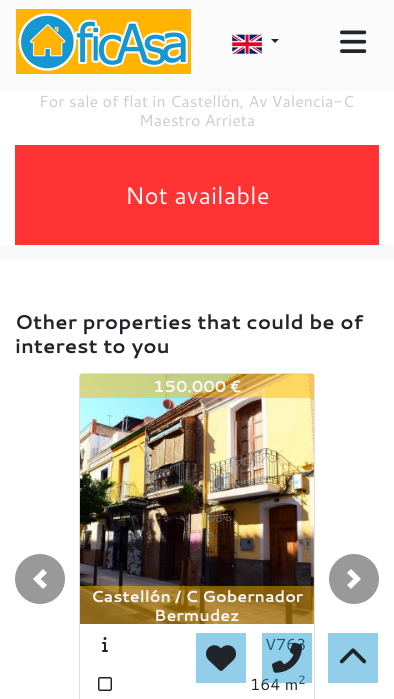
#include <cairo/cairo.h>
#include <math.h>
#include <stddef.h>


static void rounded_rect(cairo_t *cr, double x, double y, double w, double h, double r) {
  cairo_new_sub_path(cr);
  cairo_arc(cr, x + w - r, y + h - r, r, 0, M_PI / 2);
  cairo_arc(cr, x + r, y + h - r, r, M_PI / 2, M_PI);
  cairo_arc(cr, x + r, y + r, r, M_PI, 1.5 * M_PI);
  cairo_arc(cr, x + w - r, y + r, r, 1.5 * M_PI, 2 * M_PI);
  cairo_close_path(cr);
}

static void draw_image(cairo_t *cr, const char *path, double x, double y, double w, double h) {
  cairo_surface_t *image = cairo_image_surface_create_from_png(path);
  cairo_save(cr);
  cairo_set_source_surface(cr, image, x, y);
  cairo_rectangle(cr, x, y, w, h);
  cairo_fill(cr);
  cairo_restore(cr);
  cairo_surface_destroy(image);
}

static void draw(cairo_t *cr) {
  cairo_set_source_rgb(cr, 1, 1, 1);
  cairo_paint(cr);
  cairo_set_source_rgb(cr, 251 / 255.0, 251 / 255.0, 252 / 255.0);
  cairo_rectangle(cr, 0, 0, 394, 83);
  cairo_fill(cr);
  draw_image(cr, "images/1.png", 16, 9, 175, 65);
  draw_image(cr, "images/2.png", 232, 34, 30, 20);
  cairo_set_source_rgb(cr, 33 / 255.0, 37 / 255.0, 41 / 255.0);
  cairo_new_path(cr);
  cairo_move_to(cr, 271, 39);
  cairo_line_to(cr, 279, 39);
  cairo_line_to(cr, 275, 43);
  cairo_close_path(cr);
  cairo_fill(cr);
  draw_image(cr, "images/3.png", 340, 30, 27, 23);
  cairo_set_source_rgb(cr, 248 / 255.0, 249 / 255.0, 250 / 255.0);
  cairo_rectangle(cr, 0, 83, 394, 178);
  cairo_fill(cr);
  cairo_set_source_rgb(cr, 1, 1, 1);
  cairo_rectangle(cr, 0, 91, 394, 154);
  cairo_fill(cr);
  cairo_set_source_rgb(cr, 1, 51 / 255.0, 51 / 255.0);
  cairo_rectangle(cr, 15, 145, 364, 100);
  cairo_fill(cr);
  cairo_set_source_rgb(cr, 153 / 255.0, 153 / 255.0, 153 / 255.0);
  cairo_arc(cr, 40, 579, 25, 0, 2 * M_PI);
  cairo_fill(cr);
  cairo_set_source_rgb(cr, 1, 1, 1);
  cairo_new_path(cr);
  cairo_move_to(cr, 43, 569);
  cairo_line_to(cr, 33, 579);
  cairo_line_to(cr, 43, 589);
  cairo_line_to(cr, 47, 585);
  cairo_line_to(cr, 40.5, 579);
  cairo_line_to(cr, 47, 573);
  cairo_close_path(cr);
  cairo_fill(cr);
  rounded_rect(cr, 79.5, 373.5, 235, 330, 3.5);
  cairo_set_source_rgb(cr, 223 / 255.0, 223 / 255.0, 223 / 255.0);
  cairo_set_line_width(cr, 1);
  cairo_stroke(cr);
  draw_image(cr, "images/4.png", 80, 374, 234, 250);
  cairo_set_source_rgba(cr, 1, 180 / 255.0, 0, 0.47);
  cairo_rectangle(cr, 80, 374, 234, 24);
  cairo_fill(cr);
  cairo_rectangle(cr, 80, 586, 234, 38);
  cairo_fill(cr);
  draw_image(cr, "images/5.png", 102, 637, 6, 15);
  draw_image(cr, "images/6.png", 98, 677, 14, 14);
  cairo_set_source_rgb(cr, 153 / 255.0, 153 / 255.0, 153 / 255.0);
  cairo_arc(cr, 354, 579, 25, 0, 2 * M_PI);
  cairo_fill(cr);
  cairo_set_source_rgb(cr, 1, 1, 1);
  cairo_new_path(cr);
  cairo_move_to(cr, 351, 569);
  cairo_line_to(cr, 347, 573);
  cairo_line_to(cr, 353.5, 579);
  cairo_line_to(cr, 347, 585);
  cairo_line_to(cr, 351, 589);
  cairo_line_to(cr, 361, 579);
  cairo_close_path(cr);
  cairo_fill(cr);
  cairo_set_source_rgb(cr, 146 / 255.0, 206 / 255.0, 234 / 255.0);
  cairo_rectangle(cr, 196, 633, 50, 50);
  cairo_fill(cr);
  draw_image(cr, "images/7.png", 206, 645, 30, 26);
  cairo_rectangle(cr, 328, 633, 50, 50);
  cairo_fill(cr);
  draw_image(cr, "images/9.png", 339, 648, 28, 16);
  cairo_select_font_face(cr, "Cantarell", CAIRO_FONT_SLANT_NORMAL, CAIRO_FONT_WEIGHT_NORMAL);
  cairo_set_font_size(cr, 16);
  cairo_set_source_rgb(cr, 204 / 255.0, 204 / 255.0, 204 / 255.0);
  cairo_move_to(cr, 39, 107);
  cairo_show_text(cr, "For sale of flat in Castellón, Av Valencia-C");
  cairo_move_to(cr, 139, 126);
  cairo_show_text(cr, "Maestro Arrieta");
  cairo_set_font_size(cr, 24);
  cairo_set_source_rgb(cr, 248 / 255.0, 249 / 255.0, 250 / 255.0);
  cairo_move_to(cr, 125, 204);
  cairo_show_text(cr, "Not available");
  cairo_select_font_face(cr, "Cantarell", CAIRO_FONT_SLANT_NORMAL, CAIRO_FONT_WEIGHT_BOLD);
  cairo_set_font_size(cr, 20);
  cairo_set_source_rgb(cr, 33 / 255.0, 37 / 255.0, 41 / 255.0);
  cairo_move_to(cr, 15, 329);
  cairo_show_text(cr, "Other properties that could be of");
  cairo_move_to(cr, 15, 353);
  cairo_show_text(cr, "interest to you");
  cairo_set_font_size(cr, 16);
  cairo_set_source_rgb(cr, 248 / 255.0, 249 / 255.0, 250 / 255.0);
  cairo_move_to(cr, 153, 392);
  cairo_show_text(cr, "150.000 €");
  cairo_move_to(cr, 91, 602);
  cairo_show_text(cr, "Castellón / C Gobernador");
  cairo_move_to(cr, 154, 621);
  cairo_show_text(cr, "Bermudez");
  cairo_select_font_face(cr, "Cantarell", CAIRO_FONT_SLANT_NORMAL, CAIRO_FONT_WEIGHT_NORMAL);
  cairo_set_source_rgb(cr, 33 / 255.0, 37 / 255.0, 41 / 255.0);
  cairo_move_to(cr, 265, 650);
  cairo_show_text(cr, "V763");
  cairo_move_to(cr, 250, 690);
  cairo_show_text(cr, "164 m");
  cairo_set_font_size(cr, 12);
  cairo_move_to(cr, 298, 684);
  cairo_show_text(cr, "2");
  cairo_set_source_rgba(cr, 22 / 255.0, 151 / 255.0, 209 / 255.0, 0.47);
  cairo_rectangle(cr, 262, 633, 50, 50);
  cairo_fill(cr);
  draw_image(cr, "images/8.png", 272, 642, 30, 31);
}

int main(void) {
  cairo_surface_t *surface = cairo_image_surface_create(CAIRO_FORMAT_RGB24, 394, 699);
  cairo_t *cr = cairo_create(surface);
  cairo_font_options_t *options = cairo_font_options_create();
  cairo_font_options_set_hint_metrics(options, CAIRO_HINT_METRICS_OFF);
  cairo_font_options_set_hint_style(options, CAIRO_HINT_STYLE_NONE);
  cairo_set_font_options(cr, options);
  cairo_set_miter_limit(cr, 4);
  draw(cr);
  cairo_surface_write_to_png(surface, "out.png");
  cairo_font_options_destroy(options);
  cairo_destroy(cr);
  cairo_surface_destroy(surface);
  return 0;
}
